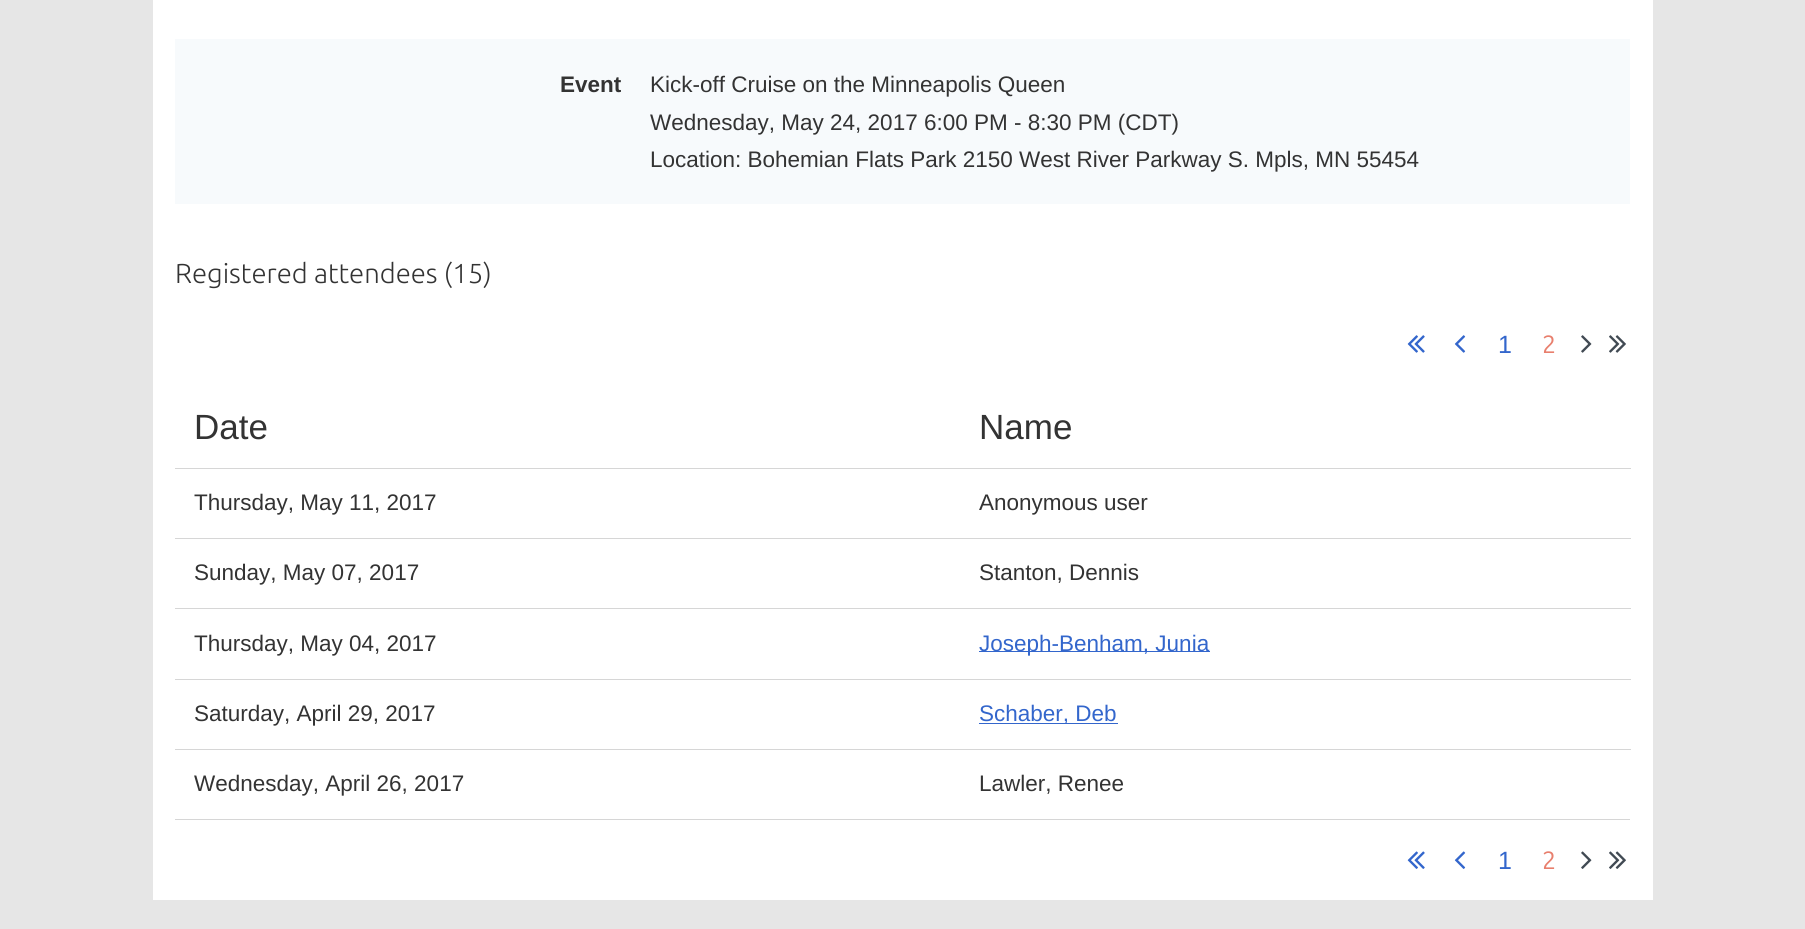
#include <cairo/cairo.h>
#include <math.h>
#include <stddef.h>


static void draw_image(cairo_t *cr, const char *path, double x, double y, double w, double h) {
  cairo_surface_t *image = cairo_image_surface_create_from_png(path);
  cairo_save(cr);
  cairo_set_source_surface(cr, image, x, y);
  cairo_rectangle(cr, x, y, w, h);
  cairo_fill(cr);
  cairo_restore(cr);
  cairo_surface_destroy(image);
}

static void draw(cairo_t *cr) {
  cairo_set_source_rgb(cr, 230 / 255.0, 230 / 255.0, 230 / 255.0);
  cairo_paint(cr);
  cairo_set_source_rgb(cr, 1, 1, 1);
  cairo_rectangle(cr, 153, 0, 1500, 900);
  cairo_fill(cr);
  cairo_set_source_rgb(cr, 247 / 255.0, 250 / 255.0, 252 / 255.0);
  cairo_rectangle(cr, 175, 39, 1455, 165);
  cairo_fill(cr);
  draw_image(cr, "images/1.png", 1407, 335, 18, 18);
  draw_image(cr, "images/2.png", 1454, 335, 12, 18);
  draw_image(cr, "images/3.png", 1581, 335, 11, 18);
  draw_image(cr, "images/4.png", 1609, 335, 17, 18);
  cairo_set_source_rgb(cr, 214 / 255.0, 214 / 255.0, 214 / 255.0);
  cairo_rectangle(cr, 175, 819, 1455, 1);
  cairo_fill(cr);
  cairo_rectangle(cr, 175, 468, 1456, 1);
  cairo_fill(cr);
  cairo_rectangle(cr, 175, 538, 1456, 1);
  cairo_fill(cr);
  cairo_rectangle(cr, 175, 608, 1456, 1);
  cairo_fill(cr);
  cairo_set_source_rgb(cr, 51 / 255.0, 102 / 255.0, 204 / 255.0);
  cairo_rectangle(cr, 979, 651, 231, 1);
  cairo_fill(cr);
  cairo_set_source_rgb(cr, 214 / 255.0, 214 / 255.0, 214 / 255.0);
  cairo_rectangle(cr, 175, 679, 1456, 1);
  cairo_fill(cr);
  cairo_set_source_rgb(cr, 51 / 255.0, 102 / 255.0, 204 / 255.0);
  cairo_rectangle(cr, 979, 723, 139, 1);
  cairo_fill(cr);
  cairo_set_source_rgb(cr, 214 / 255.0, 214 / 255.0, 214 / 255.0);
  cairo_rectangle(cr, 175, 749, 1456, 1);
  cairo_fill(cr);
  draw_image(cr, "images/5.png", 1407, 851, 18, 18);
  draw_image(cr, "images/6.png", 1454, 851, 12, 18);
  draw_image(cr, "images/7.png", 1581, 851, 11, 18);
  draw_image(cr, "images/8.png", 1609, 851, 17, 18);
  cairo_select_font_face(cr, "Liberation Sans", CAIRO_FONT_SLANT_NORMAL, CAIRO_FONT_WEIGHT_BOLD);
  cairo_set_font_size(cr, 22.5);
  cairo_set_source_rgb(cr, 51 / 255.0, 51 / 255.0, 51 / 255.0);
  cairo_move_to(cr, 560, 92);
  cairo_show_text(cr, "Event");
  cairo_select_font_face(cr, "Liberation Sans", CAIRO_FONT_SLANT_NORMAL, CAIRO_FONT_WEIGHT_NORMAL);
  cairo_move_to(cr, 650, 92);
  cairo_show_text(cr, "Kick-off Cruise on the Minneapolis Queen");
  cairo_move_to(cr, 650, 130);
  cairo_show_text(cr, "Wednesday, May 24, 2017 6:00 PM - 8:30 PM (CDT)");
  cairo_move_to(cr, 650, 167);
  cairo_show_text(cr, "Location: Bohemian Flats Park 2150 West River Parkway S. Mpls, MN 55454");
  cairo_select_font_face(cr, "Ubuntu Light", CAIRO_FONT_SLANT_NORMAL, CAIRO_FONT_WEIGHT_NORMAL);
  cairo_set_font_size(cr, 27.5);
  cairo_move_to(cr, 175, 283);
  cairo_show_text(cr, "Registered attendees (15)");
  cairo_select_font_face(cr, "Liberation Sans", CAIRO_FONT_SLANT_NORMAL, CAIRO_FONT_WEIGHT_NORMAL);
  cairo_set_font_size(cr, 25);
  cairo_set_source_rgb(cr, 51 / 255.0, 102 / 255.0, 204 / 255.0);
  cairo_move_to(cr, 1498, 353);
  cairo_show_text(cr, "1");
  cairo_select_font_face(cr, "Ubuntu", CAIRO_FONT_SLANT_NORMAL, CAIRO_FONT_WEIGHT_NORMAL);
  cairo_set_source_rgb(cr, 232 / 255.0, 127 / 255.0, 109 / 255.0);
  cairo_move_to(cr, 1542, 353);
  cairo_show_text(cr, "2");
  cairo_select_font_face(cr, "Liberation Sans", CAIRO_FONT_SLANT_NORMAL, CAIRO_FONT_WEIGHT_NORMAL);
  cairo_set_font_size(cr, 35);
  cairo_set_source_rgb(cr, 51 / 255.0, 51 / 255.0, 51 / 255.0);
  cairo_move_to(cr, 194, 439);
  cairo_show_text(cr, "Date");
  cairo_move_to(cr, 979, 439);
  cairo_show_text(cr, "Name");
  cairo_set_font_size(cr, 22.5);
  cairo_move_to(cr, 194, 510);
  cairo_show_text(cr, "Thursday, May 11, 2017");
  cairo_move_to(cr, 979, 510);
  cairo_show_text(cr, "Anonymous user");
  cairo_move_to(cr, 194, 580);
  cairo_show_text(cr, "Sunday, May 07, 2017");
  cairo_move_to(cr, 979, 580);
  cairo_show_text(cr, "Stanton, Dennis");
  cairo_move_to(cr, 194, 651);
  cairo_show_text(cr, "Thursday, May 04, 2017");
  cairo_set_source_rgb(cr, 51 / 255.0, 102 / 255.0, 204 / 255.0);
  cairo_move_to(cr, 979, 651);
  cairo_show_text(cr, "Joseph-Benham, Junia");
  cairo_set_source_rgb(cr, 51 / 255.0, 51 / 255.0, 51 / 255.0);
  cairo_move_to(cr, 194, 721);
  cairo_show_text(cr, "Saturday, April 29, 2017");
  cairo_set_source_rgb(cr, 51 / 255.0, 102 / 255.0, 204 / 255.0);
  cairo_move_to(cr, 979, 721);
  cairo_show_text(cr, "Schaber, Deb");
  cairo_set_source_rgb(cr, 51 / 255.0, 51 / 255.0, 51 / 255.0);
  cairo_move_to(cr, 194, 791);
  cairo_show_text(cr, "Wednesday, April 26, 2017");
  cairo_move_to(cr, 979, 791);
  cairo_show_text(cr, "Lawler, Renee");
  cairo_set_font_size(cr, 25);
  cairo_set_source_rgb(cr, 51 / 255.0, 102 / 255.0, 204 / 255.0);
  cairo_move_to(cr, 1498, 869);
  cairo_show_text(cr, "1");
  cairo_select_font_face(cr, "Ubuntu", CAIRO_FONT_SLANT_NORMAL, CAIRO_FONT_WEIGHT_NORMAL);
  cairo_set_source_rgb(cr, 232 / 255.0, 127 / 255.0, 109 / 255.0);
  cairo_move_to(cr, 1542, 869);
  cairo_show_text(cr, "2");
}

int main(void) {
  cairo_surface_t *surface = cairo_image_surface_create(CAIRO_FORMAT_RGB24, 1805, 929);
  cairo_t *cr = cairo_create(surface);
  cairo_font_options_t *options = cairo_font_options_create();
  cairo_font_options_set_hint_metrics(options, CAIRO_HINT_METRICS_OFF);
  cairo_font_options_set_hint_style(options, CAIRO_HINT_STYLE_NONE);
  cairo_set_font_options(cr, options);
  cairo_set_miter_limit(cr, 4);
  draw(cr);
  cairo_surface_write_to_png(surface, "out.png");
  cairo_font_options_destroy(options);
  cairo_destroy(cr);
  cairo_surface_destroy(surface);
  return 0;
}
